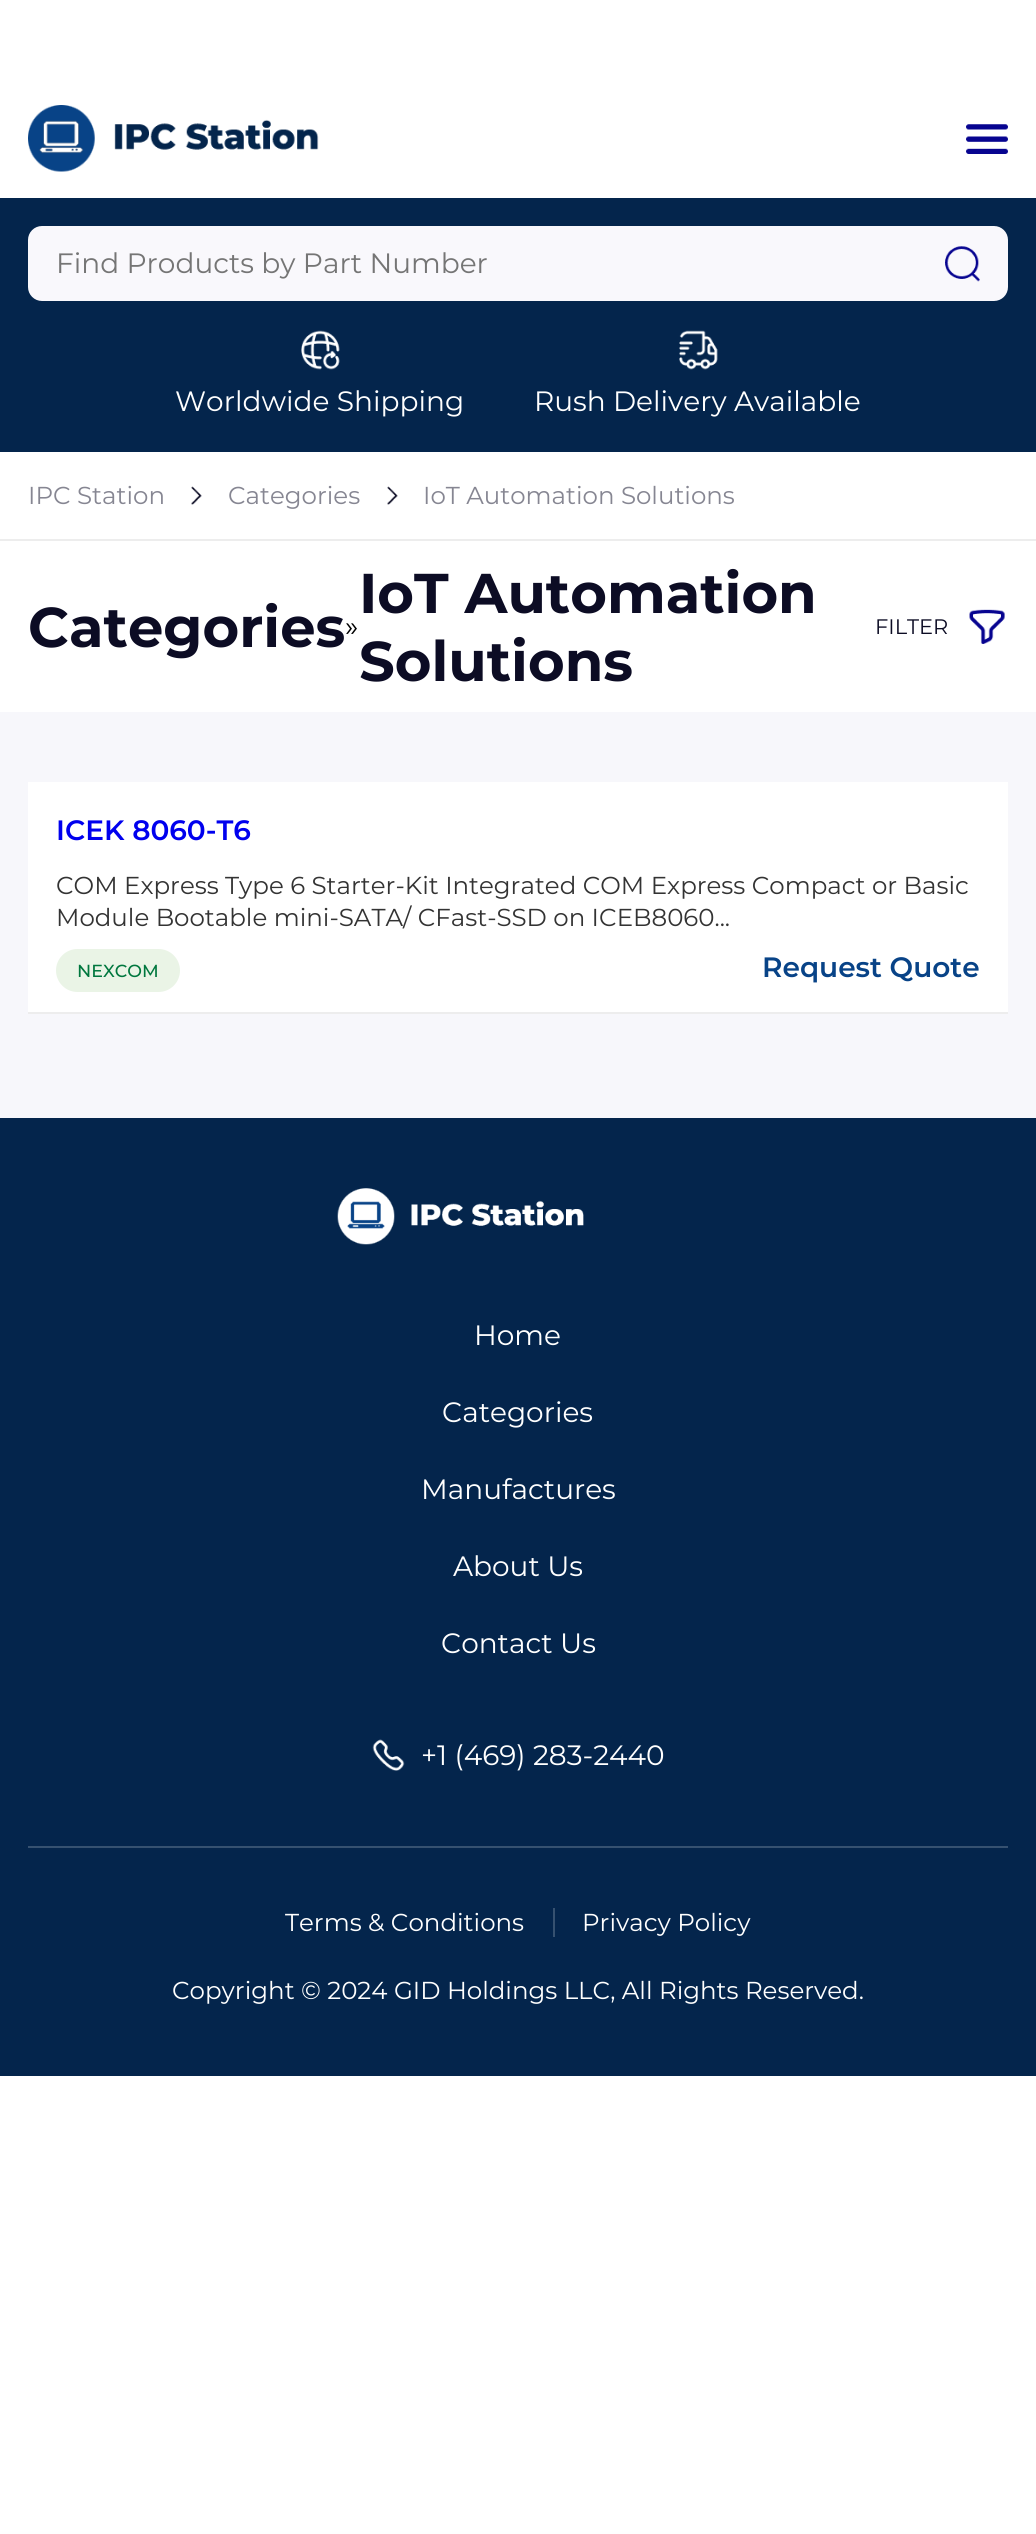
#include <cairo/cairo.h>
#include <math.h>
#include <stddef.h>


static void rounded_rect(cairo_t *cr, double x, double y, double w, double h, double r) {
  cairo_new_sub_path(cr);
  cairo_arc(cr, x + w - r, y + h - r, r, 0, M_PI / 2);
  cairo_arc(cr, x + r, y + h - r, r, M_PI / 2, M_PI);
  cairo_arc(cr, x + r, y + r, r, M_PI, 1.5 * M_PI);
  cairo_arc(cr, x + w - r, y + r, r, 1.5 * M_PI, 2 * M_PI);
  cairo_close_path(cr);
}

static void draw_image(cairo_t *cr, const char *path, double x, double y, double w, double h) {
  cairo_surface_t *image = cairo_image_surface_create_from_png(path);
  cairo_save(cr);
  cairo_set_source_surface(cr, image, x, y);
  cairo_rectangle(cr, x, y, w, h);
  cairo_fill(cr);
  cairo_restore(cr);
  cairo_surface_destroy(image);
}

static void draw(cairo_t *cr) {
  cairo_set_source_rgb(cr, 1, 1, 1);
  cairo_paint(cr);
  draw_image(cr, "images/1.png", 28, 105, 291, 67);
  draw_image(cr, "images/2.png", 966, 124, 42, 30);
  cairo_set_source_rgb(cr, 4 / 255.0, 37 / 255.0, 76 / 255.0);
  cairo_rectangle(cr, 0, 198, 1036, 254);
  cairo_fill(cr);
  cairo_set_source_rgb(cr, 249 / 255.0, 248 / 255.0, 252 / 255.0);
  rounded_rect(cr, 28, 226, 980, 75, 14);
  cairo_fill(cr);
  draw_image(cr, "images/3.png", 945, 246, 35, 36);
  draw_image(cr, "images/4.png", 301, 330, 39, 40);
  draw_image(cr, "images/5.png", 679, 330, 39, 40);
  cairo_set_source_rgb(cr, 237 / 255.0, 237 / 255.0, 237 / 255.0);
  cairo_rectangle(cr, 0, 539, 1036, 2);
  cairo_fill(cr);
  draw_image(cr, "images/6.png", 191, 486, 11, 19);
  draw_image(cr, "images/6.png", 387, 486, 11, 19);
  draw_image(cr, "images/7.png", 969, 609, 36, 35);
  cairo_set_source_rgb(cr, 247 / 255.0, 247 / 255.0, 251 / 255.0);
  cairo_rectangle(cr, 0, 712, 1036, 406);
  cairo_fill(cr);
  cairo_set_source_rgb(cr, 1, 1, 1);
  cairo_rectangle(cr, 28, 782, 980, 230);
  cairo_fill(cr);
  cairo_set_source_rgb(cr, 237 / 255.0, 237 / 255.0, 237 / 255.0);
  cairo_rectangle(cr, 28, 1012, 980, 2);
  cairo_fill(cr);
  cairo_set_source_rgb(cr, 234 / 255.0, 244 / 255.0, 230 / 255.0);
  rounded_rect(cr, 56, 949, 124, 43, 21.5);
  cairo_fill(cr);
  cairo_set_source_rgb(cr, 4 / 255.0, 37 / 255.0, 76 / 255.0);
  cairo_rectangle(cr, 0, 1118, 1036, 958);
  cairo_fill(cr);
  draw_image(cr, "images/8.png", 337, 1188, 247, 57);
  draw_image(cr, "images/9.png", 372, 1739, 33, 32);
  cairo_set_source_rgb(cr, 54 / 255.0, 81 / 255.0, 112 / 255.0);
  cairo_rectangle(cr, 28, 1846, 980, 2);
  cairo_fill(cr);
  cairo_rectangle(cr, 553, 1908, 2, 29);
  cairo_fill(cr);
  cairo_select_font_face(cr, "Montserrat", CAIRO_FONT_SLANT_NORMAL, CAIRO_FONT_WEIGHT_NORMAL);
  cairo_set_font_size(cr, 28);
  cairo_set_source_rgb(cr, 117 / 255.0, 117 / 255.0, 117 / 255.0);
  cairo_move_to(cr, 56, 273);
  cairo_show_text(cr, "Find Products by Part Number");
  cairo_set_source_rgb(cr, 1, 1, 1);
  cairo_move_to(cr, 175, 411);
  cairo_show_text(cr, "Worldwide Shipping");
  cairo_move_to(cr, 534, 411);
  cairo_show_text(cr, "Rush Delivery Available");
  cairo_set_font_size(cr, 24.5);
  cairo_set_source_rgb(cr, 134 / 255.0, 134 / 255.0, 146 / 255.0);
  cairo_move_to(cr, 28, 504);
  cairo_show_text(cr, "IPC Station");
  cairo_move_to(cr, 228, 504);
  cairo_show_text(cr, "Categories");
  cairo_move_to(cr, 423, 504);
  cairo_show_text(cr, "IoT Automation Solutions");
  cairo_select_font_face(cr, "Montserrat", CAIRO_FONT_SLANT_NORMAL, CAIRO_FONT_WEIGHT_BOLD);
  cairo_set_font_size(cr, 56);
  cairo_set_source_rgb(cr, 12 / 255.0, 12 / 255.0, 36 / 255.0);
  cairo_move_to(cr, 28, 647);
  cairo_show_text(cr, "Categories");
  cairo_select_font_face(cr, "Montserrat", CAIRO_FONT_SLANT_NORMAL, CAIRO_FONT_WEIGHT_NORMAL);
  cairo_set_font_size(cr, 28);
  cairo_set_source_rgb(cr, 0, 0, 0);
  cairo_move_to(cr, 345, 636);
  cairo_show_text(cr, "»");
  cairo_select_font_face(cr, "Montserrat", CAIRO_FONT_SLANT_NORMAL, CAIRO_FONT_WEIGHT_BOLD);
  cairo_set_font_size(cr, 56);
  cairo_set_source_rgb(cr, 12 / 255.0, 12 / 255.0, 36 / 255.0);
  cairo_move_to(cr, 359, 613);
  cairo_show_text(cr, "IoT Automation");
  cairo_move_to(cr, 359, 681);
  cairo_show_text(cr, "Solutions");
  cairo_select_font_face(cr, "Montserrat", CAIRO_FONT_SLANT_NORMAL, CAIRO_FONT_WEIGHT_NORMAL);
  cairo_set_font_size(cr, 21);
  cairo_move_to(cr, 875, 634);
  cairo_show_text(cr, "FILTER");
  cairo_select_font_face(cr, "Montserrat SemiBold", CAIRO_FONT_SLANT_NORMAL, CAIRO_FONT_WEIGHT_NORMAL);
  cairo_set_font_size(cr, 28);
  cairo_set_source_rgb(cr, 0, 0, 238 / 255.0);
  cairo_move_to(cr, 56, 840);
  cairo_show_text(cr, "ICEK 8060-T6");
  cairo_select_font_face(cr, "Montserrat", CAIRO_FONT_SLANT_NORMAL, CAIRO_FONT_WEIGHT_NORMAL);
  cairo_set_font_size(cr, 24.5);
  cairo_set_source_rgb(cr, 51 / 255.0, 51 / 255.0, 51 / 255.0);
  cairo_move_to(cr, 56, 894);
  cairo_show_text(cr, "COM Express Type 6 Starter-Kit Integrated COM Express Compact or Basic");
  cairo_move_to(cr, 56, 926);
  cairo_show_text(cr, "Module Bootable mini-SATA/ CFast-SSD on ICEB8060...");
  cairo_select_font_face(cr, "Montserrat Medium", CAIRO_FONT_SLANT_NORMAL, CAIRO_FONT_WEIGHT_NORMAL);
  cairo_set_font_size(cr, 17.5);
  cairo_set_source_rgb(cr, 0, 119 / 255.0, 62 / 255.0);
  cairo_move_to(cr, 77, 977);
  cairo_show_text(cr, "NEXCOM");
  cairo_select_font_face(cr, "Montserrat SemiBold", CAIRO_FONT_SLANT_NORMAL, CAIRO_FONT_WEIGHT_NORMAL);
  cairo_set_font_size(cr, 28);
  cairo_set_source_rgb(cr, 8 / 255.0, 67 / 255.0, 135 / 255.0);
  cairo_move_to(cr, 762, 977);
  cairo_show_text(cr, "Request Quote");
  cairo_select_font_face(cr, "Montserrat", CAIRO_FONT_SLANT_NORMAL, CAIRO_FONT_WEIGHT_NORMAL);
  cairo_set_source_rgb(cr, 1, 1, 1);
  cairo_move_to(cr, 474, 1345);
  cairo_show_text(cr, "Home");
  cairo_move_to(cr, 442, 1422);
  cairo_show_text(cr, "Categories");
  cairo_move_to(cr, 421, 1499);
  cairo_show_text(cr, "Manufactures");
  cairo_move_to(cr, 453, 1576);
  cairo_show_text(cr, "About Us");
  cairo_move_to(cr, 441, 1653);
  cairo_show_text(cr, "Contact Us");
  cairo_move_to(cr, 421, 1765);
  cairo_show_text(cr, "+1 (469) 283-2440");
  cairo_set_font_size(cr, 24.5);
  cairo_move_to(cr, 285, 1931);
  cairo_show_text(cr, "Terms & Conditions");
  cairo_move_to(cr, 582, 1931);
  cairo_show_text(cr, "Privacy Policy");
  cairo_move_to(cr, 172, 1999);
  cairo_show_text(cr, "Copyright © 2024 GID Holdings LLC, All Rights Reserved.");
}

int main(void) {
  cairo_surface_t *surface = cairo_image_surface_create(CAIRO_FORMAT_RGB24, 1036, 2534);
  cairo_t *cr = cairo_create(surface);
  cairo_font_options_t *options = cairo_font_options_create();
  cairo_font_options_set_hint_metrics(options, CAIRO_HINT_METRICS_OFF);
  cairo_font_options_set_hint_style(options, CAIRO_HINT_STYLE_NONE);
  cairo_set_font_options(cr, options);
  cairo_set_miter_limit(cr, 4);
  draw(cr);
  cairo_surface_write_to_png(surface, "out.png");
  cairo_font_options_destroy(options);
  cairo_destroy(cr);
  cairo_surface_destroy(surface);
  return 0;
}
